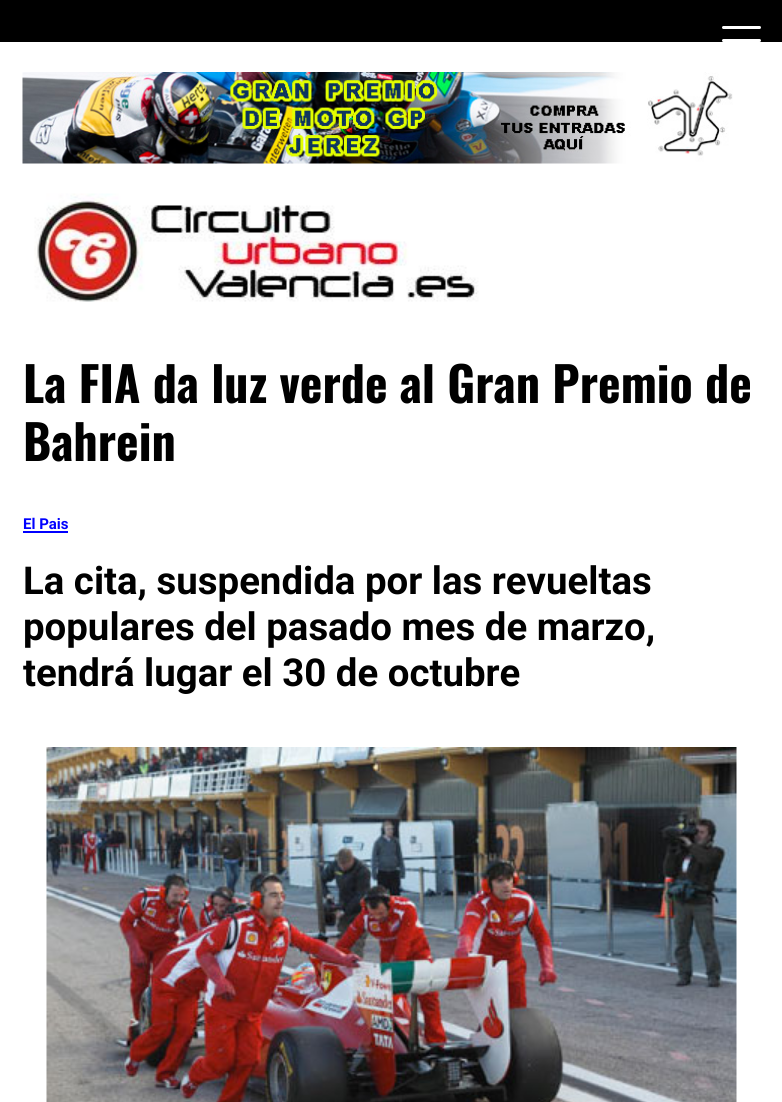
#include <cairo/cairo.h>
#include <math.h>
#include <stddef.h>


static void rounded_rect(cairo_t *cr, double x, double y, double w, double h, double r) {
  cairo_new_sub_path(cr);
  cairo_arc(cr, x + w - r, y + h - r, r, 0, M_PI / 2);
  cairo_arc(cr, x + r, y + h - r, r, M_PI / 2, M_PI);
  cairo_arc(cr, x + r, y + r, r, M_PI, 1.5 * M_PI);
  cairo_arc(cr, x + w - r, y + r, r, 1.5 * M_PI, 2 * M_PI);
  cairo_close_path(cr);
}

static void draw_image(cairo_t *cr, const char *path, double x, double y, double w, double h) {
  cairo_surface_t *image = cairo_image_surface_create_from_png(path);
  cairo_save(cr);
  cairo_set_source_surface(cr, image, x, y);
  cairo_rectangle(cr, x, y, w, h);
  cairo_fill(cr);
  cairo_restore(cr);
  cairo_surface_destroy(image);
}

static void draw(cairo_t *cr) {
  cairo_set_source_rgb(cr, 1, 1, 1);
  cairo_paint(cr);
  cairo_set_source_rgb(cr, 0, 0, 0);
  cairo_rectangle(cr, 0, 0, 782, 42);
  cairo_fill(cr);
  cairo_set_source_rgb(cr, 1, 1, 1);
  rounded_rect(cr, 722, 39, 39, 3, 1.5);
  cairo_fill(cr);
  rounded_rect(cr, 722, 26, 39, 3, 1.5);
  cairo_fill(cr);
  draw_image(cr, "images/1.png", 22, 72, 711, 92);
  draw_image(cr, "images/2.png", 34, 193, 445, 109);
  cairo_set_source_rgb(cr, 0, 0, 1);
  cairo_rectangle(cr, 23, 531, 45, 2);
  cairo_fill(cr);
  draw_image(cr, "images/3.png", 46, 747, 691, 355);
  cairo_select_font_face(cr, "Oswald", CAIRO_FONT_SLANT_NORMAL, CAIRO_FONT_WEIGHT_BOLD);
  cairo_set_font_size(cr, 48);
  cairo_set_source_rgb(cr, 0, 0, 0);
  cairo_move_to(cr, 23, 403);
  cairo_show_text(cr, "La FIA da luz verde al Gran Premio de");
  cairo_move_to(cr, 23, 461);
  cairo_show_text(cr, "Bahrein");
  cairo_select_font_face(cr, "Roboto", CAIRO_FONT_SLANT_NORMAL, CAIRO_FONT_WEIGHT_BOLD);
  cairo_set_font_size(cr, 15);
  cairo_set_source_rgb(cr, 0, 0, 1);
  cairo_move_to(cr, 23, 529);
  cairo_show_text(cr, "El Pais");
  cairo_set_font_size(cr, 38.4);
  cairo_set_source_rgb(cr, 0, 0, 0);
  cairo_move_to(cr, 23, 594);
  cairo_show_text(cr, "La cita, suspendida por las revueltas");
  cairo_move_to(cr, 23, 640);
  cairo_show_text(cr, "populares del pasado mes de marzo,");
  cairo_move_to(cr, 23, 686);
  cairo_show_text(cr, "tendrá lugar el 30 de octubre");
}

int main(void) {
  cairo_surface_t *surface = cairo_image_surface_create(CAIRO_FORMAT_RGB24, 782, 1102);
  cairo_t *cr = cairo_create(surface);
  cairo_font_options_t *options = cairo_font_options_create();
  cairo_font_options_set_hint_metrics(options, CAIRO_HINT_METRICS_OFF);
  cairo_font_options_set_hint_style(options, CAIRO_HINT_STYLE_NONE);
  cairo_set_font_options(cr, options);
  cairo_set_miter_limit(cr, 4);
  draw(cr);
  cairo_surface_write_to_png(surface, "out.png");
  cairo_font_options_destroy(options);
  cairo_destroy(cr);
  cairo_surface_destroy(surface);
  return 0;
}
